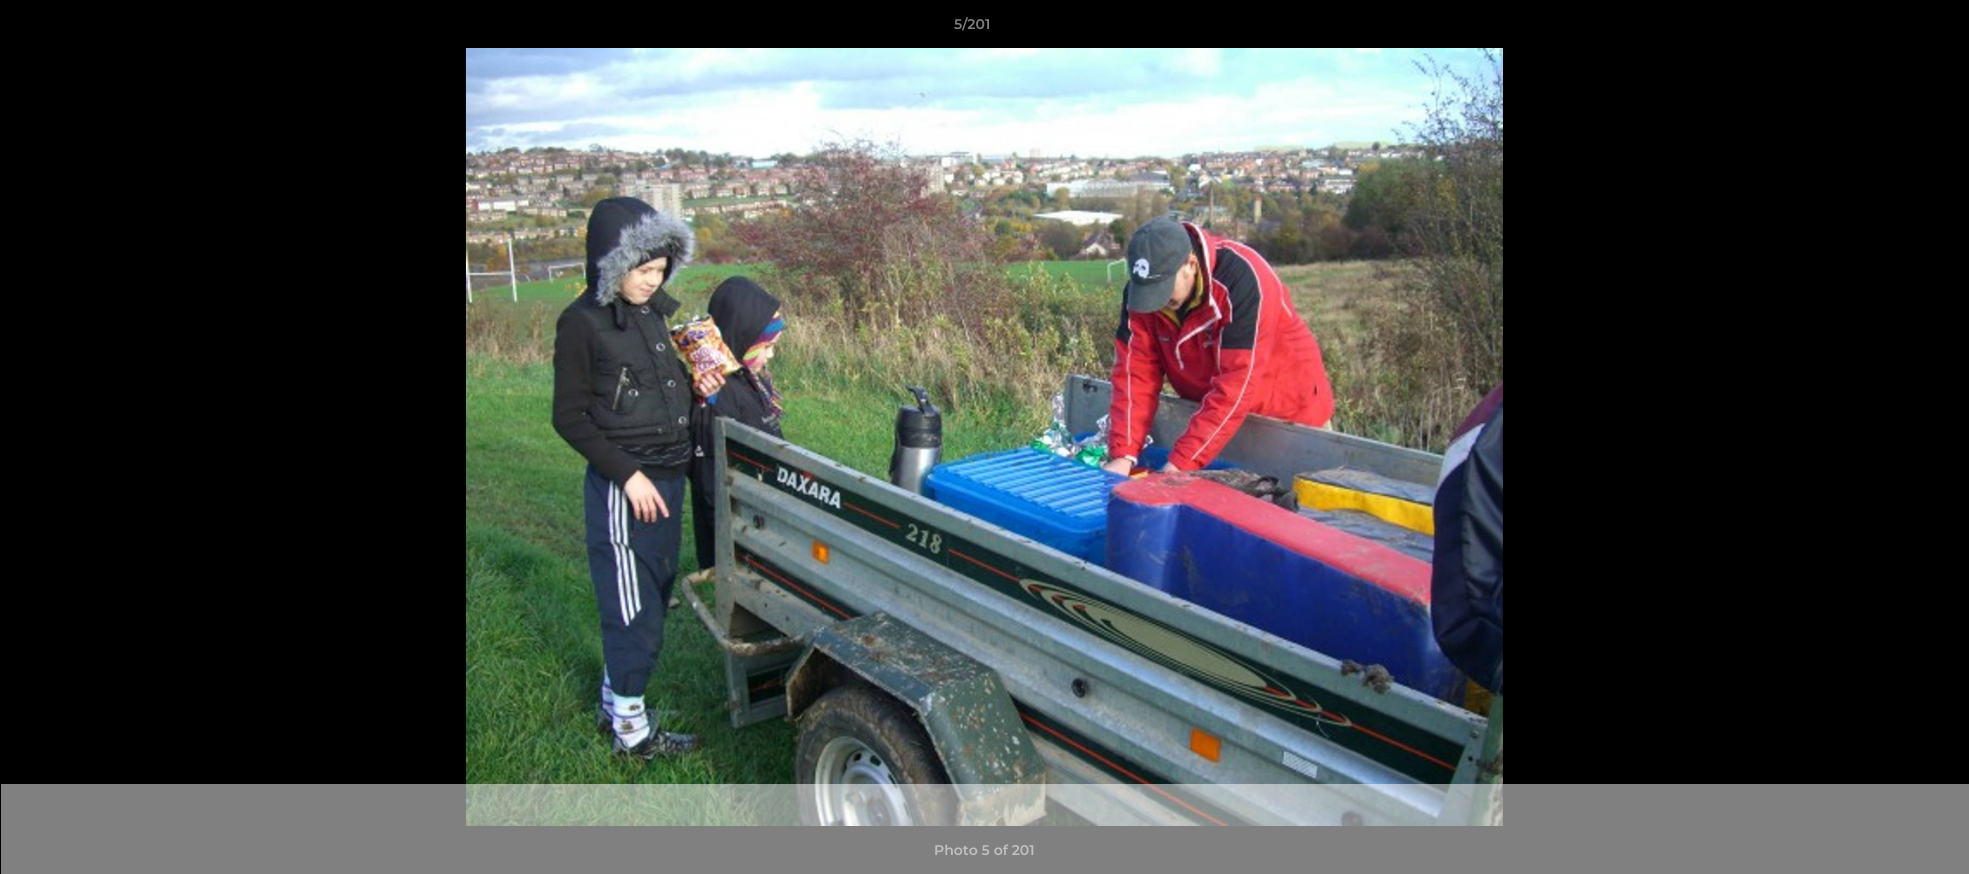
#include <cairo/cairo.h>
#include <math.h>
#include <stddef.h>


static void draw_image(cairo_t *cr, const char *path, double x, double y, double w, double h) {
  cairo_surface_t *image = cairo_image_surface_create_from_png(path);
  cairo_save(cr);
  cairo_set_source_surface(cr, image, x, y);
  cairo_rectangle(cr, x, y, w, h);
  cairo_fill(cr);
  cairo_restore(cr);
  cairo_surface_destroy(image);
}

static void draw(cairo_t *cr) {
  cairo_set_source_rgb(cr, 0, 0, 0);
  cairo_paint(cr);
  draw_image(cr, "images/1.png", 465, 48, 1038, 778);
  cairo_select_font_face(cr, "Montserrat SemiBold", CAIRO_FONT_SLANT_NORMAL, CAIRO_FONT_WEIGHT_NORMAL);
  cairo_set_font_size(cr, 14);
  cairo_set_source_rgb(cr, 128 / 255.0, 128 / 255.0, 128 / 255.0);
  cairo_move_to(cr, 954, 29);
  cairo_show_text(cr, "5/201");
  cairo_move_to(cr, 934, 855);
  cairo_show_text(cr, "Photo 5 of 201");
  cairo_set_source_rgba(cr, 1, 1, 1, 0.5);
  cairo_rectangle(cr, 1, 784, 1968, 90);
  cairo_fill(cr);
}

int main(void) {
  cairo_surface_t *surface = cairo_image_surface_create(CAIRO_FORMAT_RGB24, 1969, 874);
  cairo_t *cr = cairo_create(surface);
  cairo_font_options_t *options = cairo_font_options_create();
  cairo_font_options_set_hint_metrics(options, CAIRO_HINT_METRICS_OFF);
  cairo_font_options_set_hint_style(options, CAIRO_HINT_STYLE_NONE);
  cairo_set_font_options(cr, options);
  cairo_set_miter_limit(cr, 4);
  draw(cr);
  cairo_surface_write_to_png(surface, "out.png");
  cairo_font_options_destroy(options);
  cairo_destroy(cr);
  cairo_surface_destroy(surface);
  return 0;
}
